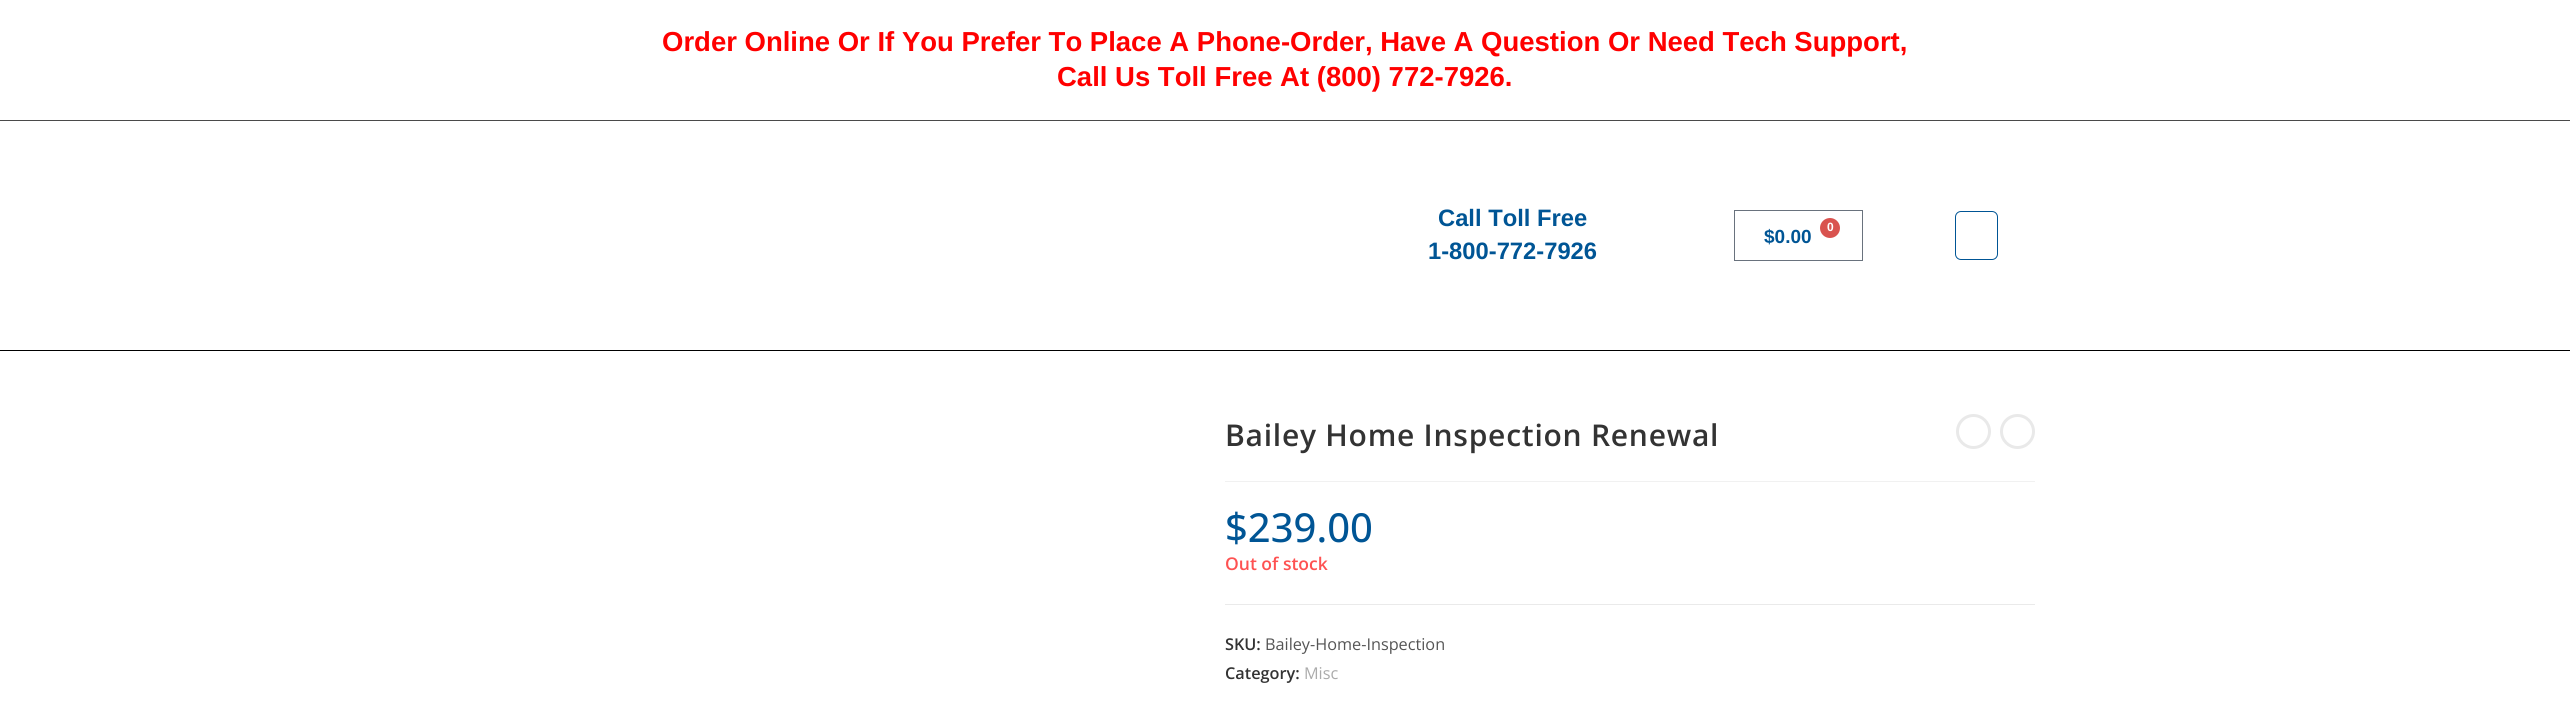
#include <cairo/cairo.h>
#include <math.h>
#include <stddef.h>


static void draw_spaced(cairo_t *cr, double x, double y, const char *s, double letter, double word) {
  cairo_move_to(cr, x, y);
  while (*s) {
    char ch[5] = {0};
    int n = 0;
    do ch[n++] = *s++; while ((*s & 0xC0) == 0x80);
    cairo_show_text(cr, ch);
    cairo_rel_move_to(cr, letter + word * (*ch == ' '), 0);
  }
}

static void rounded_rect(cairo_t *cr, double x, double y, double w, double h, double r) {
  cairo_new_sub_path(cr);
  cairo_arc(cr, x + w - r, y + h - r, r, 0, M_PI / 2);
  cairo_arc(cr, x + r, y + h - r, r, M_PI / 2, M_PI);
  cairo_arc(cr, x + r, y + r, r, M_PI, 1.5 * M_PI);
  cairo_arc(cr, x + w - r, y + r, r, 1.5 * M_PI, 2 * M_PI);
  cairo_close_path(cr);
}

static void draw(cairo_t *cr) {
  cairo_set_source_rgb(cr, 1, 1, 1);
  cairo_paint(cr);
  cairo_set_source_rgb(cr, 74 / 255.0, 74 / 255.0, 74 / 255.0);
  cairo_rectangle(cr, 0, 120, 2570, 1);
  cairo_fill(cr);
  cairo_set_source_rgb(cr, 0, 0, 0);
  cairo_rectangle(cr, 0, 350, 2570, 1);
  cairo_fill(cr);
  cairo_rectangle(cr, 1734.5, 210.5, 128, 50);
  cairo_set_source_rgb(cr, 105 / 255.0, 114 / 255.0, 125 / 255.0);
  cairo_set_line_width(cr, 1);
  cairo_stroke(cr);
  cairo_set_source_rgb(cr, 217 / 255.0, 83 / 255.0, 79 / 255.0);
  cairo_arc(cr, 1830, 228, 10, 0, 2 * M_PI);
  cairo_fill(cr);
  rounded_rect(cr, 1955.5, 211.5, 42, 48, 5.5);
  cairo_set_source_rgb(cr, 0, 85 / 255.0, 149 / 255.0);
  cairo_stroke(cr);
  cairo_set_source_rgb(cr, 241 / 255.0, 241 / 255.0, 241 / 255.0);
  cairo_rectangle(cr, 1225, 481, 810, 1);
  cairo_fill(cr);
  cairo_set_source_rgb(cr, 234 / 255.0, 234 / 255.0, 234 / 255.0);
  cairo_rectangle(cr, 1225, 604, 810, 1);
  cairo_fill(cr);
  cairo_arc(cr, 1973.5, 431.5, 16, 0, 2 * M_PI);
  cairo_set_source_rgb(cr, 233 / 255.0, 233 / 255.0, 233 / 255.0);
  cairo_set_line_width(cr, 3);
  cairo_stroke(cr);
  cairo_arc(cr, 2017.5, 431.5, 16, 0, 2 * M_PI);
  cairo_stroke(cr);
  cairo_select_font_face(cr, "Liberation Sans", CAIRO_FONT_SLANT_NORMAL, CAIRO_FONT_WEIGHT_BOLD);
  cairo_set_font_size(cr, 27.5);
  cairo_set_source_rgb(cr, 1, 0, 0);
  cairo_move_to(cr, 662, 51);
  cairo_show_text(cr, "Order Online Or If You Prefer To Place A Phone-Order, Have A Question Or Need Tech Support,");
  cairo_move_to(cr, 1057, 86);
  cairo_show_text(cr, "Call Us Toll Free At (800) 772-7926.");
  cairo_set_font_size(cr, 23.75);
  cairo_set_source_rgb(cr, 0, 85 / 255.0, 149 / 255.0);
  cairo_move_to(cr, 1438, 226);
  cairo_show_text(cr, "Call Toll Free");
  cairo_move_to(cr, 1428, 259);
  cairo_show_text(cr, "1-800-772-7926");
  cairo_set_font_size(cr, 12);
  cairo_set_source_rgb(cr, 1, 1, 1);
  cairo_move_to(cr, 1827, 231);
  cairo_show_text(cr, "0");
  cairo_set_font_size(cr, 19);
  cairo_set_source_rgb(cr, 0, 85 / 255.0, 149 / 255.0);
  cairo_move_to(cr, 1764, 243);
  cairo_show_text(cr, "$0.00");
  cairo_select_font_face(cr, "Open Sans SemiBold", CAIRO_FONT_SLANT_NORMAL, CAIRO_FONT_WEIGHT_NORMAL);
  cairo_set_font_size(cr, 30);
  cairo_set_source_rgb(cr, 51 / 255.0, 51 / 255.0, 51 / 255.0);
  draw_spaced(cr, 1225, 446, "Bailey Home Inspection Renewal", 0.75, 0);
  cairo_select_font_face(cr, "Open Sans Medium", CAIRO_FONT_SLANT_NORMAL, CAIRO_FONT_WEIGHT_NORMAL);
  cairo_set_font_size(cr, 40);
  cairo_set_source_rgb(cr, 0, 85 / 255.0, 149 / 255.0);
  cairo_move_to(cr, 1225, 542);
  cairo_show_text(cr, "$239.00");
  cairo_select_font_face(cr, "Open Sans SemiBold", CAIRO_FONT_SLANT_NORMAL, CAIRO_FONT_WEIGHT_NORMAL);
  cairo_set_font_size(cr, 17.5);
  cairo_set_source_rgb(cr, 254 / 255.0, 82 / 255.0, 82 / 255.0);
  cairo_move_to(cr, 1225, 570);
  cairo_show_text(cr, "Out of stock");
  cairo_set_font_size(cr, 16.25);
  cairo_set_source_rgb(cr, 51 / 255.0, 51 / 255.0, 51 / 255.0);
  cairo_move_to(cr, 1225, 650);
  cairo_show_text(cr, "SKU:");
  cairo_select_font_face(cr, "Open Sans", CAIRO_FONT_SLANT_NORMAL, CAIRO_FONT_WEIGHT_NORMAL);
  cairo_set_source_rgb(cr, 85 / 255.0, 85 / 255.0, 85 / 255.0);
  cairo_move_to(cr, 1265, 650);
  cairo_show_text(cr, "Bailey-Home-Inspection");
  cairo_select_font_face(cr, "Open Sans SemiBold", CAIRO_FONT_SLANT_NORMAL, CAIRO_FONT_WEIGHT_NORMAL);
  cairo_set_source_rgb(cr, 51 / 255.0, 51 / 255.0, 51 / 255.0);
  cairo_move_to(cr, 1225, 679);
  cairo_show_text(cr, "Category:");
  cairo_select_font_face(cr, "Open Sans", CAIRO_FONT_SLANT_NORMAL, CAIRO_FONT_WEIGHT_NORMAL);
  cairo_set_source_rgb(cr, 171 / 255.0, 171 / 255.0, 171 / 255.0);
  cairo_move_to(cr, 1304, 679);
  cairo_show_text(cr, "Misc");
}

int main(void) {
  cairo_surface_t *surface = cairo_image_surface_create(CAIRO_FORMAT_RGB24, 2570, 706);
  cairo_t *cr = cairo_create(surface);
  cairo_font_options_t *options = cairo_font_options_create();
  cairo_font_options_set_hint_metrics(options, CAIRO_HINT_METRICS_OFF);
  cairo_font_options_set_hint_style(options, CAIRO_HINT_STYLE_NONE);
  cairo_set_font_options(cr, options);
  cairo_set_miter_limit(cr, 4);
  draw(cr);
  cairo_surface_write_to_png(surface, "out.png");
  cairo_font_options_destroy(options);
  cairo_destroy(cr);
  cairo_surface_destroy(surface);
  return 0;
}
